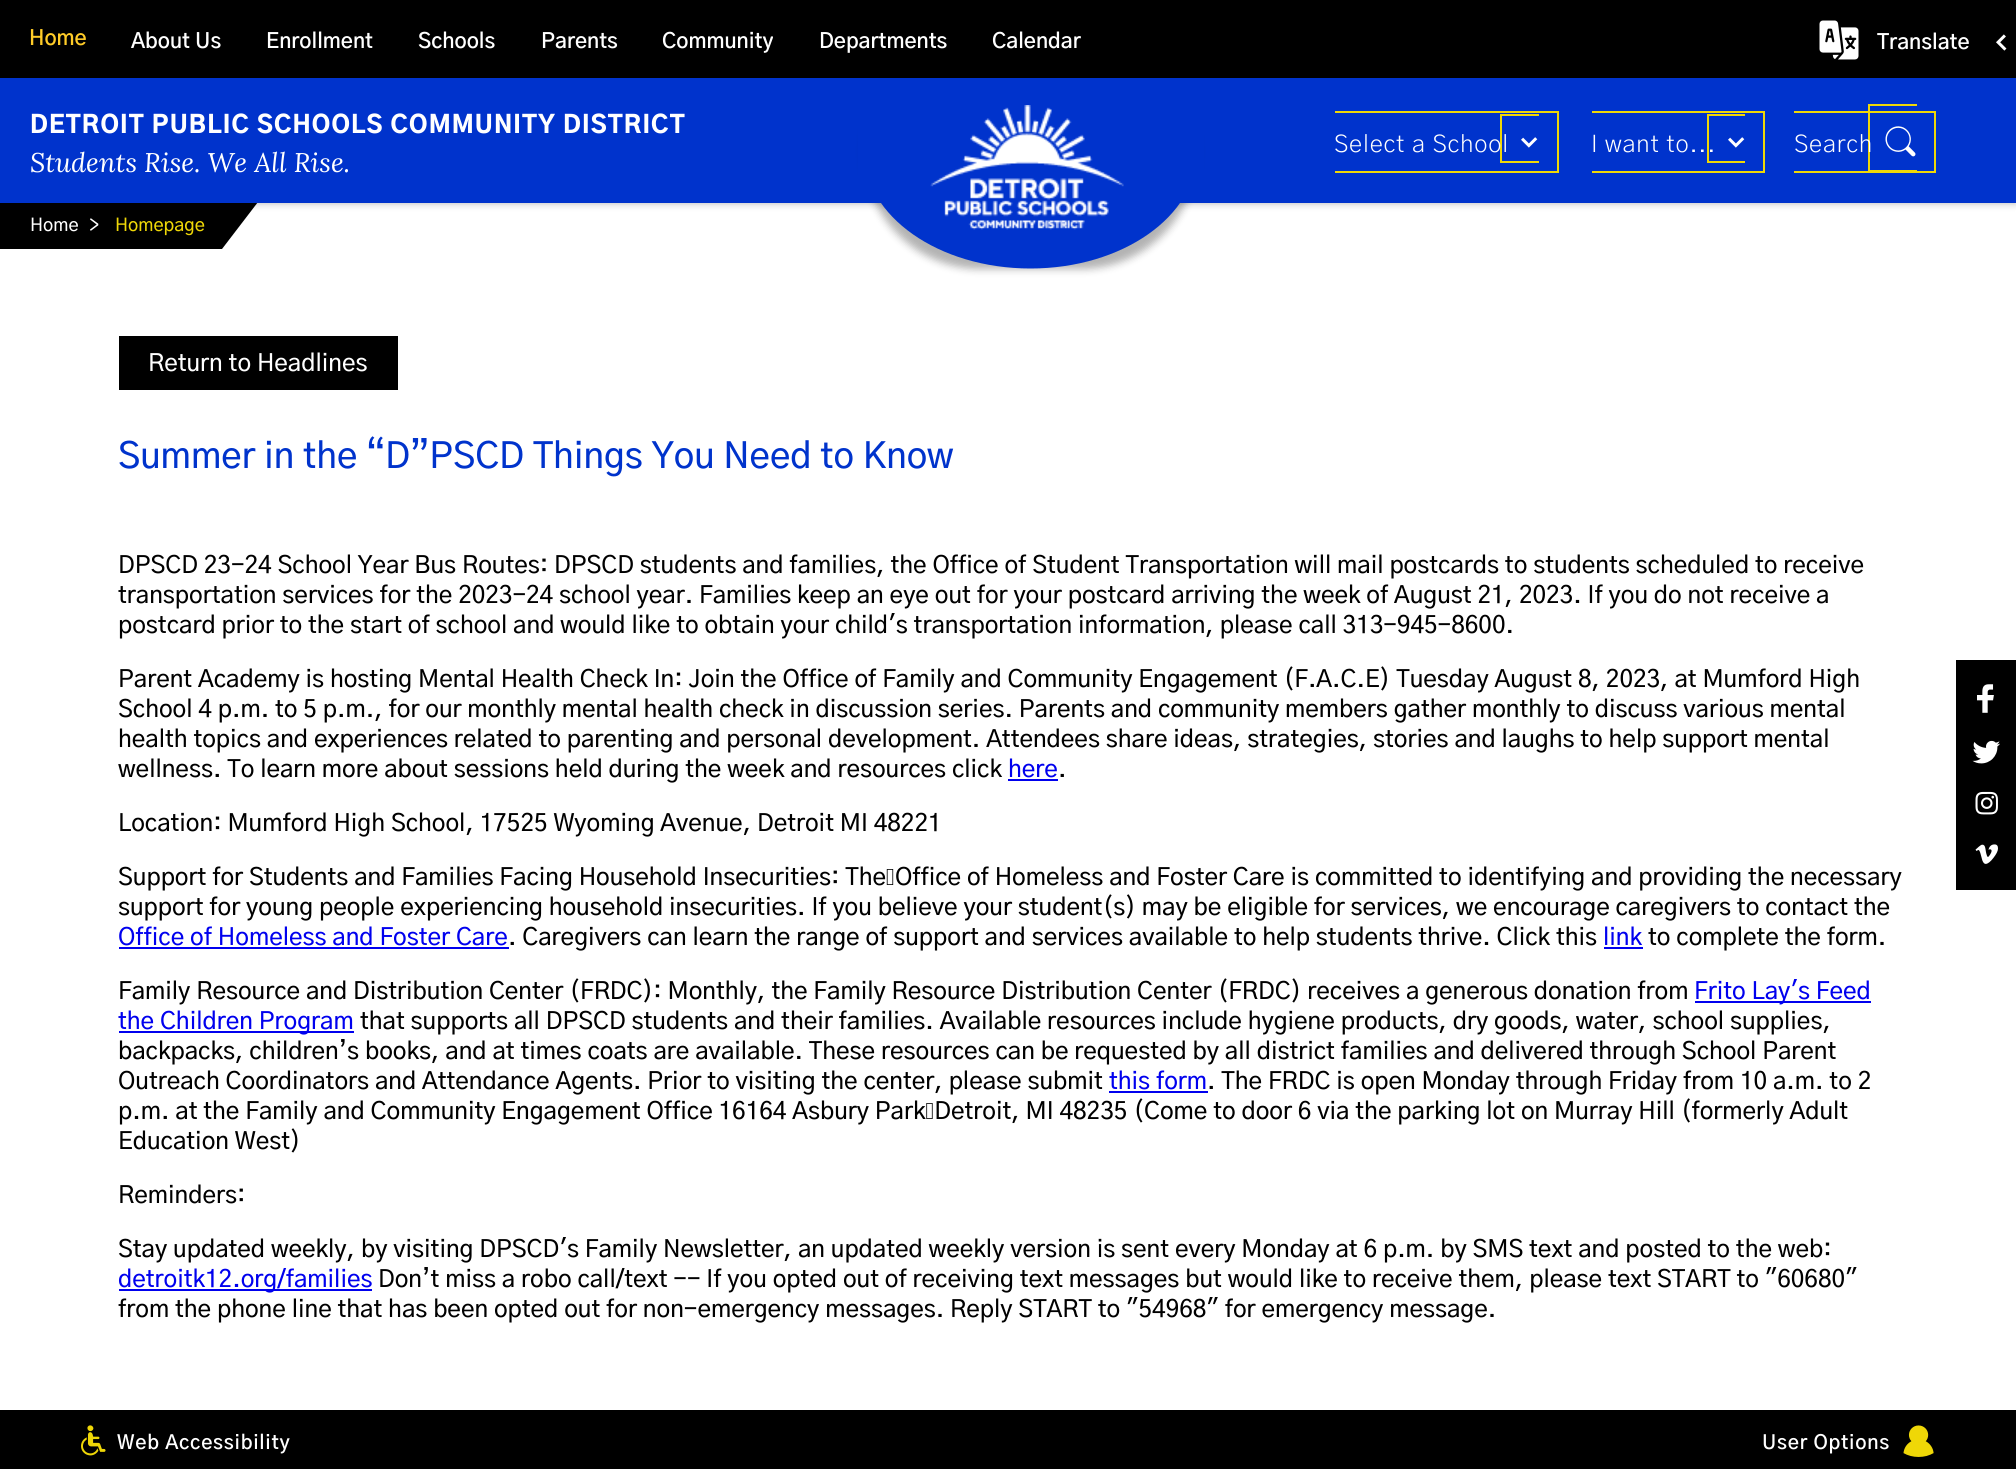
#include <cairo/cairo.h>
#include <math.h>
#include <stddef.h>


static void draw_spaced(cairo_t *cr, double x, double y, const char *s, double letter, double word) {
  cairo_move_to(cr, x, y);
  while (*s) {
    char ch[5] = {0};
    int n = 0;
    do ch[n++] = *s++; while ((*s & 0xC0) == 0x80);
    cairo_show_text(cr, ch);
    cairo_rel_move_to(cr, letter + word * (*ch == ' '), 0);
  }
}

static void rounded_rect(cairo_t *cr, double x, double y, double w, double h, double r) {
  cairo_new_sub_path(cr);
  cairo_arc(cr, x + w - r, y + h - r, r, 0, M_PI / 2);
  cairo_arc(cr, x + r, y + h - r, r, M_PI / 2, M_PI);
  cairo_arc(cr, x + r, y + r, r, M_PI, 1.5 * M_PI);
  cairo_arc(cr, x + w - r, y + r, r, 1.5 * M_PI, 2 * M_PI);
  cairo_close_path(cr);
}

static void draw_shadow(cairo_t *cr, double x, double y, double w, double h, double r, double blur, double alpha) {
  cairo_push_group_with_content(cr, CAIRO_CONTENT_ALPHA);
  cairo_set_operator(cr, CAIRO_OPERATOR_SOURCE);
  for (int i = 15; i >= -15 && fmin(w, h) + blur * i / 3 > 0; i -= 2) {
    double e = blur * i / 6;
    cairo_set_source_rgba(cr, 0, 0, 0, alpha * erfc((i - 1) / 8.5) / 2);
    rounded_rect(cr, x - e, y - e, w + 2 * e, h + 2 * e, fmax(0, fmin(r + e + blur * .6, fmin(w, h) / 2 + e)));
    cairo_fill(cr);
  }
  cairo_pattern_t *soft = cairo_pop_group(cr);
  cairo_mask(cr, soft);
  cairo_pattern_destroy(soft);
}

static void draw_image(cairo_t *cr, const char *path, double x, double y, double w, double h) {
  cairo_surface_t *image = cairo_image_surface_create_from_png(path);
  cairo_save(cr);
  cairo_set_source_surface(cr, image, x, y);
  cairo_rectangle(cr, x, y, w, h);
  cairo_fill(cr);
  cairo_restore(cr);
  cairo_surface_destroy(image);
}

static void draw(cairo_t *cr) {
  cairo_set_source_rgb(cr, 1, 1, 1);
  cairo_paint(cr);
  cairo_set_source_rgb(cr, 0, 0, 0);
  cairo_rectangle(cr, 0, 203, 222, 46);
  cairo_fill(cr);
  cairo_new_path(cr);
  cairo_move_to(cr, 222, 202);
  cairo_line_to(cr, 258, 202);
  cairo_line_to(cr, 222, 249);
  cairo_close_path(cr);
  cairo_fill(cr);
  cairo_set_source_rgb(cr, 0, 0, 0);
  draw_shadow(cr, 0, 78, 2016, 125, 0, 4, 0.3);
  cairo_set_source_rgb(cr, 0, 51 / 255.0, 204 / 255.0);
  cairo_rectangle(cr, 0, 78, 2016, 125);
  cairo_fill(cr);
  cairo_set_source_rgb(cr, 0, 0, 0);
  draw_shadow(cr, 864, 35, 333, 234, 117, 4, 0.3);
  cairo_set_source_rgb(cr, 0, 51 / 255.0, 204 / 255.0);
  cairo_new_path(cr);
  cairo_move_to(cr, 1030.5, 34.5);
  cairo_curve_to(cr, 1122.5, 34.5, 1197, 87, 1197, 151.5);
  cairo_curve_to(cr, 1197, 216, 1122.5, 268.5, 1030.5, 268.5);
  cairo_curve_to(cr, 938.5, 268.5, 864, 216, 864, 151.5);
  cairo_curve_to(cr, 864, 87, 938.5, 34.5, 1030.5, 34.5);
  cairo_close_path(cr);
  cairo_fill(cr);
  cairo_set_source_rgb(cr, 0, 0, 0);
  cairo_rectangle(cr, 0, 0, 2016, 78);
  cairo_fill(cr);
  draw_image(cr, "images/1.png", 1819, 20, 40, 40);
  draw_image(cr, "images/2.png", 1996, 34, 11, 17);
  cairo_set_source_rgb(cr, 0, 51 / 255.0, 204 / 255.0);
  cairo_rectangle(cr, 858, 78, 346, 125);
  cairo_fill(cr);
  draw_image(cr, "images/3.png", 930, 105, 194, 125);
  cairo_set_source_rgb(cr, 239 / 255.0, 215 / 255.0, 7 / 255.0);
  cairo_rectangle(cr, 1500, 114, 39, 2);
  cairo_fill(cr);
  cairo_rectangle(cr, 1500, 161, 39, 2);
  cairo_fill(cr);
  cairo_rectangle(cr, 1500, 114, 2, 48);
  cairo_fill(cr);
  cairo_rectangle(cr, 1335, 111, 224, 2);
  cairo_fill(cr);
  cairo_rectangle(cr, 1557, 111, 2, 62);
  cairo_fill(cr);
  cairo_rectangle(cr, 1335, 171, 224, 2);
  cairo_fill(cr);
  draw_image(cr, "images/4.png", 1521, 137, 17, 11);
  cairo_rectangle(cr, 1707, 114, 38, 2);
  cairo_fill(cr);
  cairo_rectangle(cr, 1707, 161, 38, 2);
  cairo_fill(cr);
  cairo_rectangle(cr, 1707, 114, 2, 48);
  cairo_fill(cr);
  cairo_rectangle(cr, 1592, 111, 172, 2);
  cairo_fill(cr);
  cairo_rectangle(cr, 1763, 111, 2, 62);
  cairo_fill(cr);
  cairo_rectangle(cr, 1592, 171, 172, 2);
  cairo_fill(cr);
  draw_image(cr, "images/4.png", 1728, 137, 17, 11);
  cairo_rectangle(cr, 1868, 104, 49, 2);
  cairo_fill(cr);
  cairo_rectangle(cr, 1868, 170, 49, 1);
  cairo_fill(cr);
  cairo_rectangle(cr, 1868, 104, 2, 67);
  cairo_fill(cr);
  cairo_rectangle(cr, 1794, 111, 141, 2);
  cairo_fill(cr);
  cairo_rectangle(cr, 1934, 111, 2, 62);
  cairo_fill(cr);
  cairo_rectangle(cr, 1794, 171, 141, 2);
  cairo_fill(cr);
  draw_image(cr, "images/5.png", 1885, 126, 31, 31);
  cairo_set_source_rgb(cr, 0, 0, 0);
  cairo_rectangle(cr, 119, 336, 279, 54);
  cairo_fill(cr);
  cairo_set_source_rgb(cr, 0, 0, 238 / 255.0);
  cairo_rectangle(cr, 1008, 779, 50, 2);
  cairo_fill(cr);
  cairo_rectangle(cr, 119, 947, 390, 2);
  cairo_fill(cr);
  cairo_rectangle(cr, 1604, 947, 39, 2);
  cairo_fill(cr);
  cairo_rectangle(cr, 1695, 1001, 176, 2);
  cairo_fill(cr);
  cairo_rectangle(cr, 119, 1031, 235, 2);
  cairo_fill(cr);
  cairo_rectangle(cr, 1109, 1091, 99, 2);
  cairo_fill(cr);
  cairo_rectangle(cr, 119, 1289, 253, 2);
  cairo_fill(cr);
  cairo_set_source_rgb(cr, 0, 0, 0);
  cairo_rectangle(cr, 1956, 660, 60, 230);
  cairo_fill(cr);
  draw_image(cr, "images/6.png", 1977, 684, 17, 29);
  draw_image(cr, "images/7.png", 1972, 740, 28, 24);
  draw_image(cr, "images/8.png", 1975, 791, 23, 24);
  draw_image(cr, "images/9.png", 1975, 844, 23, 20);
  cairo_rectangle(cr, 0, 1410, 2016, 59);
  cairo_fill(cr);
  draw_image(cr, "images/10.png", 81, 1425, 25, 31);
  draw_image(cr, "images/11.png", 1903, 1425, 31, 32);
  cairo_select_font_face(cr, "Gothic A1 SemiBold", CAIRO_FONT_SLANT_NORMAL, CAIRO_FONT_WEIGHT_NORMAL);
  cairo_set_font_size(cr, 21);
  cairo_set_source_rgb(cr, 1, 204 / 255.0, 40 / 255.0);
  cairo_move_to(cr, 29, 45);
  cairo_show_text(cr, "Home");
  cairo_set_source_rgb(cr, 1, 1, 1);
  cairo_move_to(cr, 131, 48);
  cairo_show_text(cr, "About Us");
  cairo_move_to(cr, 266, 48);
  cairo_show_text(cr, "Enrollment");
  cairo_move_to(cr, 418, 48);
  cairo_show_text(cr, "Schools");
  cairo_move_to(cr, 541, 48);
  cairo_show_text(cr, "Parents");
  cairo_move_to(cr, 662, 48);
  cairo_show_text(cr, "Community");
  cairo_move_to(cr, 819, 48);
  cairo_show_text(cr, "Departments");
  cairo_move_to(cr, 992, 48);
  cairo_show_text(cr, "Calendar");
  cairo_move_to(cr, 1877, 49);
  cairo_show_text(cr, "Translate");
  cairo_select_font_face(cr, "Gothic A1 Black", CAIRO_FONT_SLANT_NORMAL, CAIRO_FONT_WEIGHT_NORMAL);
  cairo_set_font_size(cr, 24);
  draw_spaced(cr, 30, 133, "DETROIT PUBLIC SCHOOLS COMMUNITY DISTRICT", 1.1, 0);
  cairo_select_font_face(cr, "Lora", CAIRO_FONT_SLANT_ITALIC, CAIRO_FONT_WEIGHT_NORMAL);
  cairo_set_font_size(cr, 27);
  cairo_move_to(cr, 30, 172);
  cairo_show_text(cr, "Students Rise. We All Rise.");
  cairo_select_font_face(cr, "Gothic A1 Light", CAIRO_FONT_SLANT_NORMAL, CAIRO_FONT_WEIGHT_NORMAL);
  cairo_set_font_size(cr, 24);
  draw_spaced(cr, 1334, 152, "Select a School", 0.8, 0);
  draw_spaced(cr, 1591, 152, "I want to...", 0.8, 0);
  draw_spaced(cr, 1794, 152, "Search", 0.8, 0);
  cairo_select_font_face(cr, "Gothic A1 Medium", CAIRO_FONT_SLANT_NORMAL, CAIRO_FONT_WEIGHT_NORMAL);
  cairo_set_font_size(cr, 18);
  cairo_move_to(cr, 30, 231);
  cairo_show_text(cr, "Home");
  cairo_move_to(cr, 89, 231);
  cairo_show_text(cr, ">");
  cairo_set_source_rgb(cr, 239 / 255.0, 215 / 255.0, 7 / 255.0);
  cairo_move_to(cr, 115, 231);
  cairo_show_text(cr, "Homepage");
  cairo_set_font_size(cr, 24);
  cairo_set_source_rgb(cr, 1, 1, 1);
  cairo_move_to(cr, 148, 371);
  cairo_show_text(cr, "Return to Headlines");
  cairo_set_font_size(cr, 36);
  cairo_set_source_rgb(cr, 0, 51 / 255.0, 204 / 255.0);
  cairo_move_to(cr, 118, 468);
  cairo_show_text(cr, "Summer in the “D”PSCD Things You Need to Know");
  cairo_set_font_size(cr, 24);
  cairo_set_source_rgb(cr, 0, 0, 0);
  cairo_move_to(cr, 118, 573);
  cairo_show_text(cr, "DPSCD 23-24 School Year Bus Routes: DPSCD students and families, the Office of Student Transportation will mail postcards to students scheduled to receive");
  cairo_move_to(cr, 118, 603);
  cairo_show_text(cr, "transportation services for the 2023-24 school year. Families keep an eye out for your postcard arriving the week of August 21, 2023. If you do not receive a");
  cairo_move_to(cr, 118, 633);
  cairo_show_text(cr, "postcard prior to the start of school and would like to obtain your child's transportation information, please call 313-945-8600.");
  cairo_move_to(cr, 118, 687);
  cairo_show_text(cr, "Parent Academy is hosting Mental Health Check In: Join the Office of Family and Community Engagement (F.A.C.E) Tuesday August 8, 2023, at Mumford High");
  cairo_move_to(cr, 118, 717);
  cairo_show_text(cr, "School 4 p.m. to 5 p.m., for our monthly mental health check in discussion series. Parents and community members gather monthly to discuss various mental");
  cairo_move_to(cr, 118, 747);
  cairo_show_text(cr, "health topics and experiences related to parenting and personal development. Attendees share ideas, strategies, stories and laughs to help support mental");
  cairo_move_to(cr, 118, 777);
  cairo_show_text(cr, "wellness. To learn more about sessions held during the week and resources click");
  cairo_set_source_rgb(cr, 0, 0, 238 / 255.0);
  cairo_move_to(cr, 1008, 777);
  cairo_show_text(cr, "here");
  cairo_set_source_rgb(cr, 0, 0, 0);
  cairo_move_to(cr, 1058, 777);
  cairo_show_text(cr, ".");
  cairo_move_to(cr, 118, 831);
  cairo_show_text(cr, "Location: Mumford High School, 17525 Wyoming Avenue, Detroit MI 48221");
  cairo_move_to(cr, 118, 885);
  cairo_show_text(cr, "Support for Students and Families Facing Household Insecurities: The Office of Homeless and Foster Care is committed to identifying and providing the necessary");
  cairo_move_to(cr, 118, 915);
  cairo_show_text(cr, "support for young people experiencing household insecurities. If you believe your student(s) may be eligible for services, we encourage caregivers to contact the");
  cairo_set_source_rgb(cr, 0, 0, 238 / 255.0);
  cairo_move_to(cr, 118, 945);
  cairo_show_text(cr, "Office of Homeless and Foster Care");
  cairo_set_source_rgb(cr, 0, 0, 0);
  cairo_move_to(cr, 508, 945);
  cairo_show_text(cr, ". Caregivers can learn the range of support and services available to help students thrive. Click this");
  cairo_set_source_rgb(cr, 0, 0, 238 / 255.0);
  cairo_move_to(cr, 1603, 945);
  cairo_show_text(cr, "link");
  cairo_set_source_rgb(cr, 0, 0, 0);
  cairo_move_to(cr, 1648, 945);
  cairo_show_text(cr, "to complete the form.");
  cairo_move_to(cr, 118, 999);
  cairo_show_text(cr, "Family Resource and Distribution Center (FRDC): Monthly, the Family Resource Distribution Center (FRDC) receives a generous donation from");
  cairo_set_source_rgb(cr, 0, 0, 238 / 255.0);
  cairo_move_to(cr, 1694, 999);
  cairo_show_text(cr, "Frito Lay's Feed");
  cairo_move_to(cr, 118, 1029);
  cairo_show_text(cr, "the Children Program");
  cairo_set_source_rgb(cr, 0, 0, 0);
  cairo_move_to(cr, 360, 1029);
  cairo_show_text(cr, "that supports all DPSCD students and their families. Available resources include hygiene products, dry goods, water, school supplies,");
  cairo_move_to(cr, 118, 1059);
  cairo_show_text(cr, "backpacks, children’s books, and at times coats are available. These resources can be requested by all district families and delivered through School Parent");
  cairo_move_to(cr, 118, 1089);
  cairo_show_text(cr, "Outreach Coordinators and Attendance Agents. Prior to visiting the center, please submit");
  cairo_set_source_rgb(cr, 0, 0, 238 / 255.0);
  cairo_move_to(cr, 1109, 1089);
  cairo_show_text(cr, "this form");
  cairo_set_source_rgb(cr, 0, 0, 0);
  cairo_move_to(cr, 1207, 1089);
  cairo_show_text(cr, ". The FRDC is open Monday through Friday from 10 a.m. to 2");
  cairo_move_to(cr, 118, 1119);
  cairo_show_text(cr, "p.m. at the Family and Community Engagement Office 16164 Asbury Park Detroit, MI 48235 (Come to door 6 via the parking lot on Murray Hill (formerly Adult");
  cairo_move_to(cr, 118, 1149);
  cairo_show_text(cr, "Education West)");
  cairo_move_to(cr, 118, 1203);
  cairo_show_text(cr, "Reminders:");
  cairo_move_to(cr, 118, 1257);
  cairo_show_text(cr, "Stay updated weekly, by visiting DPSCD's Family Newsletter, an updated weekly version is sent every Monday at 6 p.m. by SMS text and posted to the web:");
  cairo_set_source_rgb(cr, 0, 0, 238 / 255.0);
  cairo_move_to(cr, 118, 1287);
  cairo_show_text(cr, "detroitk12.org/families");
  cairo_set_source_rgb(cr, 0, 0, 0);
  cairo_move_to(cr, 378, 1287);
  cairo_show_text(cr, "Don’t miss a robo call/text -- If you opted out of receiving text messages but would like to receive them, please text START to \"60680\"");
  cairo_move_to(cr, 118, 1317);
  cairo_show_text(cr, "from the phone line that has been opted out for non-emergency messages. Reply START to \"54968\" for emergency message.");
  cairo_select_font_face(cr, "Gothic A1 SemiBold", CAIRO_FONT_SLANT_NORMAL, CAIRO_FONT_WEIGHT_NORMAL);
  cairo_set_font_size(cr, 19.5);
  cairo_set_source_rgb(cr, 1, 1, 1);
  draw_spaced(cr, 117, 1449, "Web Accessibility", 0.75, 0);
  draw_spaced(cr, 1762, 1449, "User Options", 0.75, 0);
}

int main(void) {
  cairo_surface_t *surface = cairo_image_surface_create(CAIRO_FORMAT_RGB24, 2016, 1469);
  cairo_t *cr = cairo_create(surface);
  cairo_font_options_t *options = cairo_font_options_create();
  cairo_font_options_set_hint_metrics(options, CAIRO_HINT_METRICS_OFF);
  cairo_font_options_set_hint_style(options, CAIRO_HINT_STYLE_NONE);
  cairo_set_font_options(cr, options);
  cairo_set_miter_limit(cr, 4);
  draw(cr);
  cairo_surface_write_to_png(surface, "out.png");
  cairo_font_options_destroy(options);
  cairo_destroy(cr);
  cairo_surface_destroy(surface);
  return 0;
}
